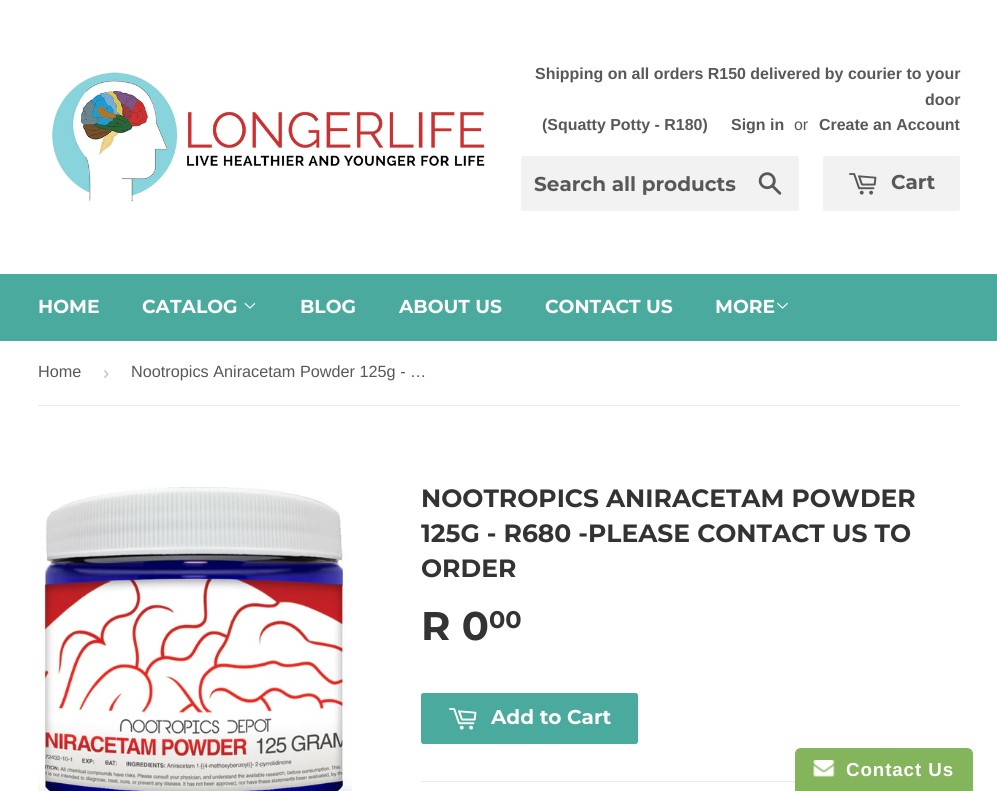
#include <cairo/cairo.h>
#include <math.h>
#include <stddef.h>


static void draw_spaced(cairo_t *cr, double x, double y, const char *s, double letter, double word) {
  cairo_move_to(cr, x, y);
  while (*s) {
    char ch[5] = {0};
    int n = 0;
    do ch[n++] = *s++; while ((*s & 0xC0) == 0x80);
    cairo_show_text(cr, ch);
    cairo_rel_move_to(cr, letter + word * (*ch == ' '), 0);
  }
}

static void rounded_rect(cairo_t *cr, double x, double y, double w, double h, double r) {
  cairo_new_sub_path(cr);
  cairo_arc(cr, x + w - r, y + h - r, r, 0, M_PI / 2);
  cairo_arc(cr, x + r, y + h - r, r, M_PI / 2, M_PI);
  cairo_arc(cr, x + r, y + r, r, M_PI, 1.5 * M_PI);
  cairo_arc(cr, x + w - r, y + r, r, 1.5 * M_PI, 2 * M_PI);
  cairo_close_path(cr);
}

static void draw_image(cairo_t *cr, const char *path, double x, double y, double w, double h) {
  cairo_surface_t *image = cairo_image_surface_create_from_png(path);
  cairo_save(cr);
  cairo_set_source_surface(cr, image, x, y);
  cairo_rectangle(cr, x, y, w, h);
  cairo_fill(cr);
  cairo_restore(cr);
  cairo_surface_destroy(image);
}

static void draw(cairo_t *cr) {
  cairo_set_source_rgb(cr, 1, 1, 1);
  cairo_paint(cr);
  draw_image(cr, "images/1.png", 52, 72, 433, 130);
  cairo_set_source_rgb(cr, 242 / 255.0, 242 / 255.0, 242 / 255.0);
  rounded_rect(cr, 521, 156, 278, 55, 2.5);
  cairo_fill(cr);
  draw_image(cr, "images/2.png", 758, 172, 24, 23);
  rounded_rect(cr, 823, 156, 137, 55, 2.5);
  cairo_fill(cr);
  draw_image(cr, "images/3.png", 849, 173, 28, 22);
  cairo_set_source_rgb(cr, 73 / 255.0, 170 / 255.0, 157 / 255.0);
  cairo_rectangle(cr, 0, 274, 997, 67);
  cairo_fill(cr);
  draw_image(cr, "images/4.png", 244, 302, 12, 7);
  draw_image(cr, "images/5.png", 777, 302, 11, 7);
  cairo_set_source_rgb(cr, 236 / 255.0, 236 / 255.0, 236 / 255.0);
  cairo_rectangle(cr, 38, 405, 922, 1);
  cairo_fill(cr);
  draw_image(cr, "images/6.png", 38, 487, 314, 304);
  cairo_set_source_rgb(cr, 73 / 255.0, 170 / 255.0, 157 / 255.0);
  rounded_rect(cr, 421, 693, 217, 51, 2.5);
  cairo_fill(cr);
  draw_image(cr, "images/7.png", 449, 708, 28, 22);
  cairo_set_source_rgb(cr, 236 / 255.0, 236 / 255.0, 236 / 255.0);
  cairo_rectangle(cr, 421, 781, 374, 1);
  cairo_fill(cr);
  cairo_set_source_rgb(cr, 132 / 255.0, 180 / 255.0, 91 / 255.0);
  cairo_new_path(cr);
  cairo_move_to(cr, 801, 748);
  cairo_line_to(cr, 967, 748);
  cairo_curve_to(cr, 970.5, 748, 973, 750.5, 973, 754);
  cairo_line_to(cr, 973, 791);
  cairo_line_to(cr, 795, 791);
  cairo_line_to(cr, 795, 754);
  cairo_curve_to(cr, 795, 750.5, 797.5, 748, 801, 748);
  cairo_close_path(cr);
  cairo_fill(cr);
  draw_image(cr, "images/8.png", 813, 760, 22, 17);
  cairo_select_font_face(cr, "Liberation Sans", CAIRO_FONT_SLANT_NORMAL, CAIRO_FONT_WEIGHT_BOLD);
  cairo_set_font_size(cr, 15.95);
  cairo_set_source_rgb(cr, 88 / 255.0, 88 / 255.0, 88 / 255.0);
  cairo_move_to(cr, 535, 79);
  cairo_show_text(cr, "Shipping on all orders R150 delivered by courier to your");
  cairo_move_to(cr, 925, 105);
  cairo_show_text(cr, "door");
  cairo_move_to(cr, 542, 130);
  cairo_show_text(cr, "(Squatty Potty - R180)");
  cairo_move_to(cr, 731, 130);
  cairo_show_text(cr, "Sign in");
  cairo_select_font_face(cr, "Liberation Sans", CAIRO_FONT_SLANT_NORMAL, CAIRO_FONT_WEIGHT_NORMAL);
  cairo_move_to(cr, 794, 130);
  cairo_show_text(cr, "or");
  cairo_select_font_face(cr, "Liberation Sans", CAIRO_FONT_SLANT_NORMAL, CAIRO_FONT_WEIGHT_BOLD);
  cairo_move_to(cr, 819, 130);
  cairo_show_text(cr, "Create an Account");
  cairo_select_font_face(cr, "Montserrat Thin", CAIRO_FONT_SLANT_NORMAL, CAIRO_FONT_WEIGHT_NORMAL);
  cairo_set_font_size(cr, 20);
  cairo_move_to(cr, 534, 191);
  cairo_show_text(cr, "Search all products");
  cairo_move_to(cr, 891, 189);
  cairo_show_text(cr, "Cart");
  cairo_set_font_size(cr, 18.75);
  cairo_set_source_rgb(cr, 1, 1, 1);
  cairo_move_to(cr, 38, 313);
  cairo_show_text(cr, "HOME");
  cairo_move_to(cr, 142, 313);
  cairo_show_text(cr, "CATALOG");
  cairo_move_to(cr, 300, 313);
  cairo_show_text(cr, "BLOG");
  cairo_move_to(cr, 399, 313);
  cairo_show_text(cr, "ABOUT US");
  cairo_move_to(cr, 545, 313);
  cairo_show_text(cr, "CONTACT US");
  cairo_move_to(cr, 715, 313);
  cairo_show_text(cr, "MORE");
  cairo_select_font_face(cr, "Liberation Sans", CAIRO_FONT_SLANT_NORMAL, CAIRO_FONT_WEIGHT_NORMAL);
  cairo_set_font_size(cr, 16.25);
  cairo_set_source_rgb(cr, 88 / 255.0, 88 / 255.0, 88 / 255.0);
  cairo_move_to(cr, 38, 377);
  cairo_show_text(cr, "Home");
  cairo_set_font_size(cr, 18.75);
  cairo_set_source_rgb(cr, 187 / 255.0, 187 / 255.0, 187 / 255.0);
  cairo_move_to(cr, 103, 379);
  cairo_show_text(cr, "›");
  cairo_set_font_size(cr, 16.25);
  cairo_set_source_rgb(cr, 88 / 255.0, 88 / 255.0, 88 / 255.0);
  cairo_move_to(cr, 131, 377);
  cairo_show_text(cr, "Nootropics Aniracetam Powder 125g - …");
  cairo_select_font_face(cr, "Montserrat Thin", CAIRO_FONT_SLANT_NORMAL, CAIRO_FONT_WEIGHT_NORMAL);
  cairo_set_font_size(cr, 25);
  cairo_set_source_rgb(cr, 51 / 255.0, 51 / 255.0, 51 / 255.0);
  cairo_move_to(cr, 421, 507);
  cairo_show_text(cr, "NOOTROPICS ANIRACETAM POWDER");
  cairo_move_to(cr, 421, 542);
  cairo_show_text(cr, "125G - R680 -PLEASE CONTACT US TO");
  cairo_move_to(cr, 421, 577);
  cairo_show_text(cr, "ORDER");
  cairo_set_font_size(cr, 40);
  cairo_move_to(cr, 421, 640);
  cairo_show_text(cr, "R 0");
  cairo_set_font_size(cr, 24);
  cairo_move_to(cr, 489, 628);
  cairo_show_text(cr, "00");
  cairo_set_font_size(cr, 20);
  cairo_set_source_rgb(cr, 1, 1, 1);
  cairo_move_to(cr, 491, 724);
  cairo_show_text(cr, "Add to Cart");
  cairo_select_font_face(cr, "Liberation Sans", CAIRO_FONT_SLANT_NORMAL, CAIRO_FONT_WEIGHT_BOLD);
  cairo_set_font_size(cr, 18.75);
  draw_spaced(cr, 846, 776, "Contact Us", 0.9, 0);
}

int main(void) {
  cairo_surface_t *surface = cairo_image_surface_create(CAIRO_FORMAT_RGB24, 997, 791);
  cairo_t *cr = cairo_create(surface);
  cairo_font_options_t *options = cairo_font_options_create();
  cairo_font_options_set_hint_metrics(options, CAIRO_HINT_METRICS_OFF);
  cairo_font_options_set_hint_style(options, CAIRO_HINT_STYLE_NONE);
  cairo_set_font_options(cr, options);
  cairo_set_miter_limit(cr, 4);
  draw(cr);
  cairo_surface_write_to_png(surface, "out.png");
  cairo_font_options_destroy(options);
  cairo_destroy(cr);
  cairo_surface_destroy(surface);
  return 0;
}
